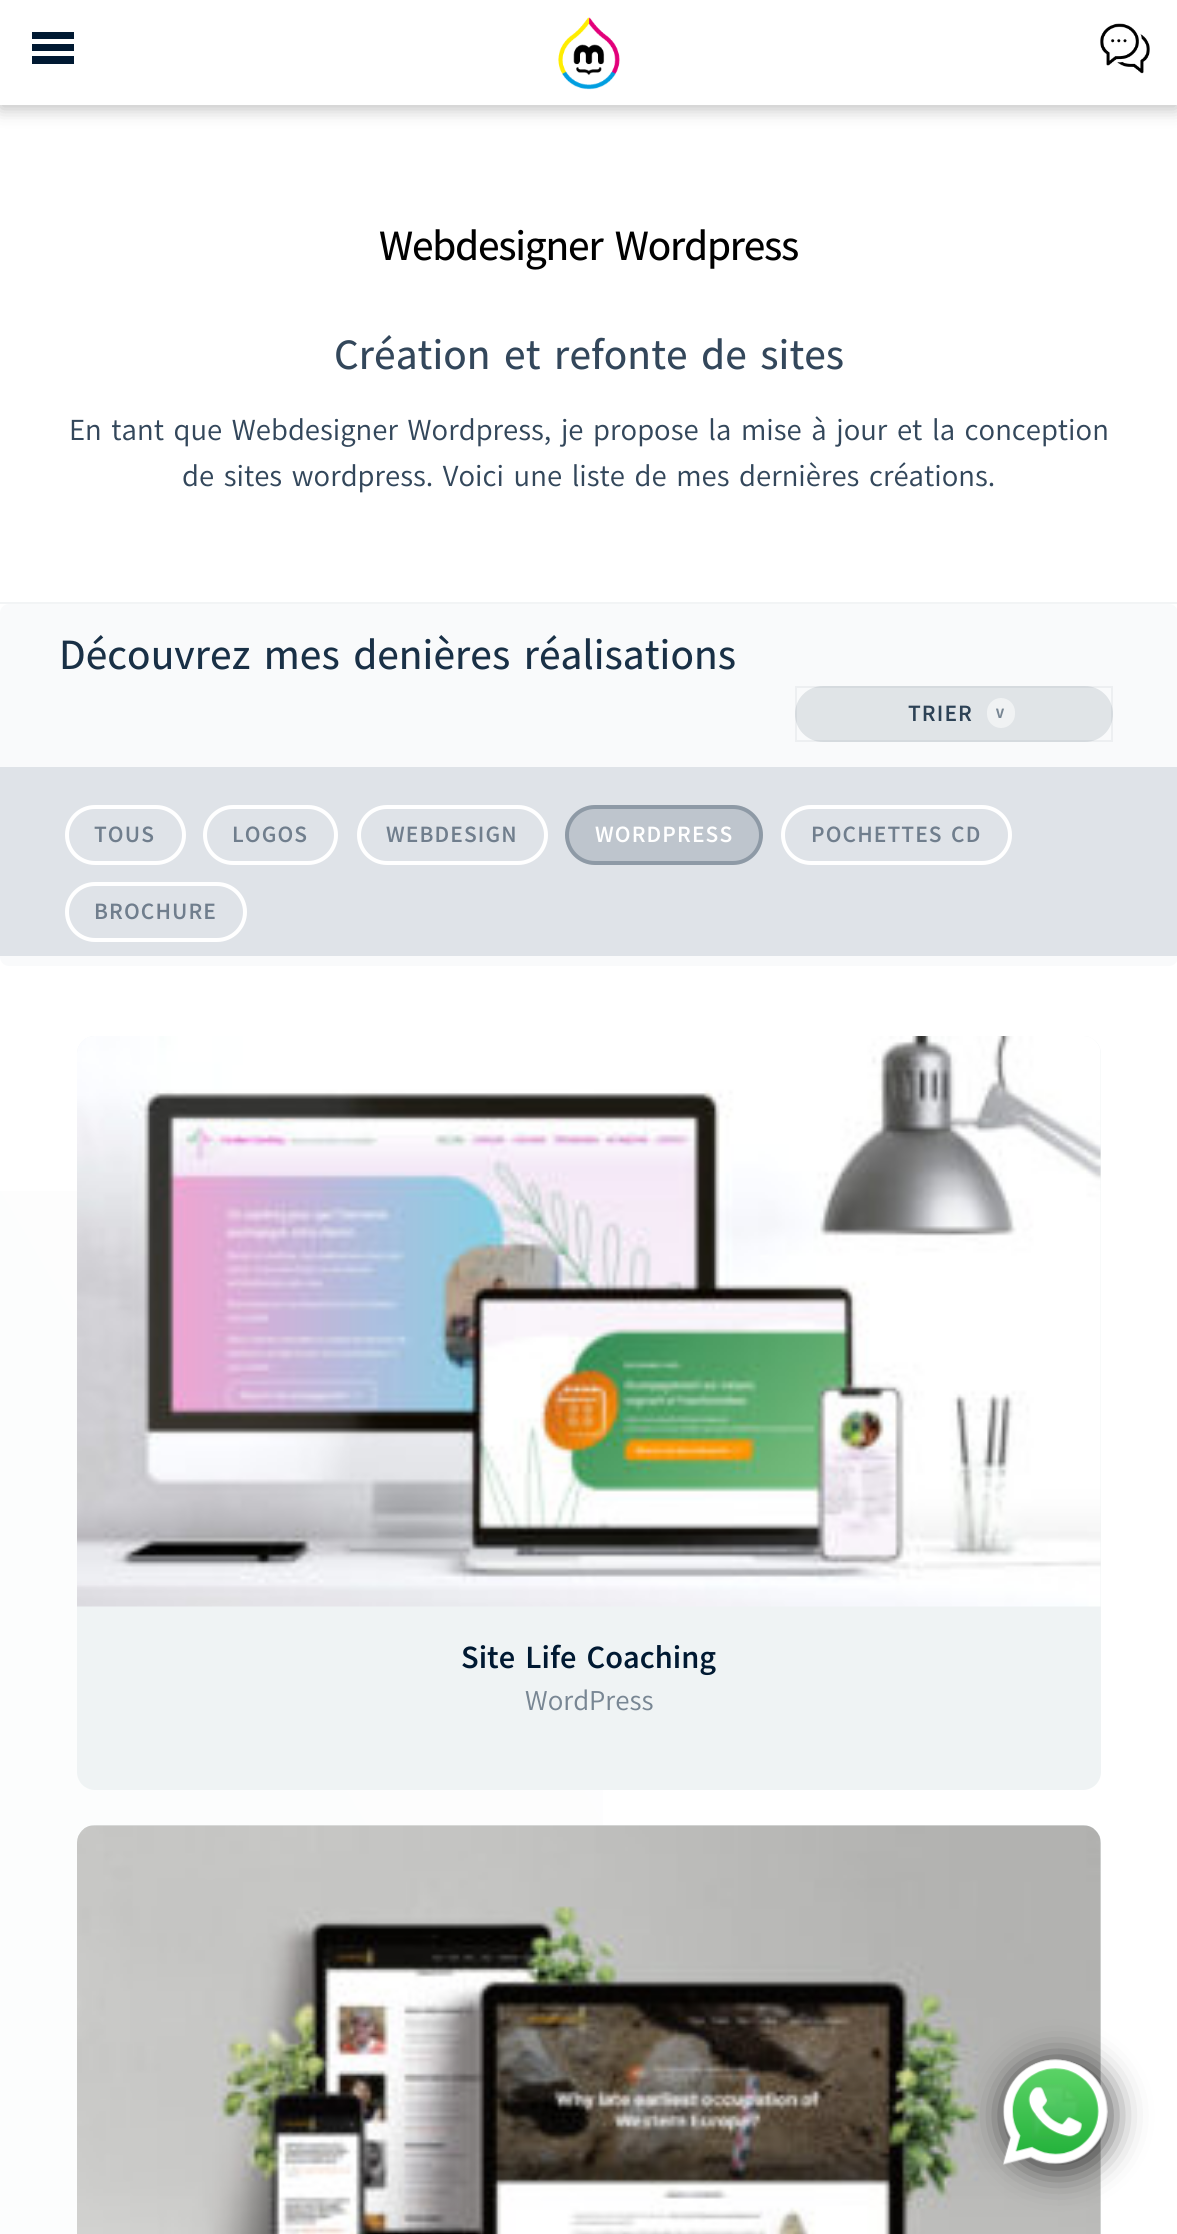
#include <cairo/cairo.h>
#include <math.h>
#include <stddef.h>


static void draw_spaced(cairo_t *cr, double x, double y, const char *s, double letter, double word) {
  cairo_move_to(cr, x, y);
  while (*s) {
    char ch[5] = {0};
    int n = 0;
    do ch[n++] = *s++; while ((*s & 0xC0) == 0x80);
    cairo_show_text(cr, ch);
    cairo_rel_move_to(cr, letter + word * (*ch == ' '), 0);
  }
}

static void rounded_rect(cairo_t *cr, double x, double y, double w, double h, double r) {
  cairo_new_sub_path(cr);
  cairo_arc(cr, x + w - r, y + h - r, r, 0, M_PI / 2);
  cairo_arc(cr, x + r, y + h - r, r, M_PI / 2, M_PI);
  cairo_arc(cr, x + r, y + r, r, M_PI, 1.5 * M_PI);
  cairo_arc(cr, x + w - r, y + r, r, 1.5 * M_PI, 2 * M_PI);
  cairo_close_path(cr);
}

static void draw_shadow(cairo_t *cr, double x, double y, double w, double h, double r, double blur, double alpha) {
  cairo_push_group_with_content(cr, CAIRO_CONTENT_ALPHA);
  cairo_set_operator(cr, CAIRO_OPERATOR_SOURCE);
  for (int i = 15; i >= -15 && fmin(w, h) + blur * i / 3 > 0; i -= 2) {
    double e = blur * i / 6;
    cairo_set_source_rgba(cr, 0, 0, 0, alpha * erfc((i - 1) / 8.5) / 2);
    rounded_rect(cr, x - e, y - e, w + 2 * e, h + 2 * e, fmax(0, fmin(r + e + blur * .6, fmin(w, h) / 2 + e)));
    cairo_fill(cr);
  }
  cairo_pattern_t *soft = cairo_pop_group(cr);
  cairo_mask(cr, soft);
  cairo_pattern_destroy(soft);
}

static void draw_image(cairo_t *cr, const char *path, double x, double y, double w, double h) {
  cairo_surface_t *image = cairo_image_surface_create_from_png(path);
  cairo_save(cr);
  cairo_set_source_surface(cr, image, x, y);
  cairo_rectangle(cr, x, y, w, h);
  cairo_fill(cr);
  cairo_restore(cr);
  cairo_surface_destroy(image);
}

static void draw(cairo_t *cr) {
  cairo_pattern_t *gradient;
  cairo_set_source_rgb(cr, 1, 1, 1);
  cairo_paint(cr);
  gradient = cairo_pattern_create_linear(-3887, 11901, 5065, 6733);
  cairo_pattern_add_color_stop_rgba(gradient, 0, 239 / 255.0, 243 / 255.0, 244 / 255.0, 1);
  cairo_pattern_add_color_stop_rgba(gradient, 1, 1, 1, 1, 1);
  cairo_set_source(cr, gradient);
  cairo_pattern_destroy(gradient);
  cairo_rectangle(cr, 0, 1191, 603, 1043);
  cairo_fill(cr);
  cairo_set_source_rgb(cr, 0, 0, 0);
  draw_shadow(cr, 0, 4, 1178, 105, 0, 9, 0.25);
  cairo_set_source_rgb(cr, 1, 1, 1);
  cairo_rectangle(cr, 0, 0, 1177, 105);
  cairo_fill(cr);
  cairo_set_source_rgb(cr, 0, 25 / 255.0, 50 / 255.0);
  cairo_rectangle(cr, 32, 32, 42, 7);
  cairo_fill(cr);
  cairo_rectangle(cr, 32, 44, 42, 7);
  cairo_fill(cr);
  cairo_rectangle(cr, 32, 56, 42, 8);
  cairo_fill(cr);
  draw_image(cr, "images/1.png", 558, 17, 62, 73);
  draw_image(cr, "images/2.png", 1100, 23, 50, 51);
  cairo_set_source_rgb(cr, 242 / 255.0, 244 / 255.0, 245 / 255.0);
  cairo_rectangle(cr, 0, 602, 1177, 2);
  cairo_fill(cr);
  cairo_set_source_rgb(cr, 249 / 255.0, 250 / 255.0, 251 / 255.0);
  rounded_rect(cr, 0, 604, 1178, 362, 9);
  cairo_fill(cr);
  cairo_set_source_rgb(cr, 224 / 255.0, 228 / 255.0, 231 / 255.0);
  rounded_rect(cr, 795, 686, 318, 56, 28);
  cairo_fill(cr);
  cairo_rectangle(cr, 796, 687, 316, 54);
  cairo_set_source_rgba(cr, 0, 25 / 255.0, 50 / 255.0, 0.05);
  cairo_stroke(cr);
  cairo_set_source_rgb(cr, 240 / 255.0, 242 / 255.0, 243 / 255.0);
  rounded_rect(cr, 987, 698, 28, 30, 14);
  cairo_fill(cr);
  cairo_set_source_rgb(cr, 223 / 255.0, 227 / 255.0, 232 / 255.0);
  cairo_rectangle(cr, 0, 767, 1177, 189);
  cairo_fill(cr);
  rounded_rect(cr, 67, 807, 117, 56, 28);
  cairo_set_source_rgb(cr, 1, 1, 1);
  cairo_set_line_width(cr, 4);
  cairo_stroke(cr);
  rounded_rect(cr, 205, 807, 131, 56, 28);
  cairo_stroke(cr);
  rounded_rect(cr, 359, 807, 187, 56, 28);
  cairo_stroke(cr);
  cairo_set_source_rgb(cr, 190 / 255.0, 197 / 255.0, 205 / 255.0);
  rounded_rect(cr, 565, 805, 198, 60, 30);
  cairo_fill(cr);
  rounded_rect(cr, 567, 807, 194, 56, 28);
  cairo_set_source_rgba(cr, 0, 25 / 255.0, 50 / 255.0, 0.25);
  cairo_stroke(cr);
  rounded_rect(cr, 783, 807, 227, 56, 28);
  cairo_set_source_rgb(cr, 1, 1, 1);
  cairo_stroke(cr);
  rounded_rect(cr, 67, 884, 178, 56, 28);
  cairo_stroke(cr);
  cairo_set_source_rgb(cr, 239 / 255.0, 243 / 255.0, 244 / 255.0);
  rounded_rect(cr, 77, 1036, 1024, 754, 18);
  cairo_fill(cr);
  draw_image(cr, "images/3.png", 77, 1036, 1024, 571);
  rounded_rect(cr, 77, 1825, 1024, 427, 18);
  cairo_fill(cr);
  draw_image(cr, "images/4.png", 77, 1825, 1024, 409);
  cairo_set_source_rgb(cr, 0, 0, 0);
  draw_shadow(cr, 1006, 2063, 105, 105, 52.5, 17.5, 0.75);
  draw_image(cr, "images/5.png", 1003, 2059, 105, 106);
  cairo_select_font_face(cr, "Akatab Medium", CAIRO_FONT_SLANT_NORMAL, CAIRO_FONT_WEIGHT_NORMAL);
  cairo_set_font_size(cr, 42);
  cairo_set_source_rgb(cr, 0, 0, 0);
  draw_spaced(cr, 379, 260, "Webdesigner Wordpress", -1.25, 0);
  cairo_set_source_rgb(cr, 51 / 255.0, 71 / 255.0, 91 / 255.0);
  cairo_move_to(cr, 334, 369);
  cairo_show_text(cr, "Création et refonte de sites");
  cairo_select_font_face(cr, "Akatab", CAIRO_FONT_SLANT_NORMAL, CAIRO_FONT_WEIGHT_NORMAL);
  cairo_set_font_size(cr, 29.75);
  cairo_move_to(cr, 69, 440);
  cairo_show_text(cr, "En tant que Webdesigner Wordpress, je propose la mise à jour et la conception");
  cairo_move_to(cr, 182, 486);
  cairo_show_text(cr, "de sites wordpress. Voici une liste de mes dernières créations.");
  cairo_select_font_face(cr, "Akatab Medium", CAIRO_FONT_SLANT_NORMAL, CAIRO_FONT_WEIGHT_NORMAL);
  cairo_set_font_size(cr, 42);
  cairo_set_source_rgb(cr, 25 / 255.0, 48 / 255.0, 70 / 255.0);
  cairo_move_to(cr, 59, 669);
  cairo_show_text(cr, "Découvrez mes denières réalisations");
  cairo_select_font_face(cr, "Akatab", CAIRO_FONT_SLANT_NORMAL, CAIRO_FONT_WEIGHT_BOLD);
  cairo_set_font_size(cr, 22.75);
  cairo_set_source_rgb(cr, 45 / 255.0, 66 / 255.0, 86 / 255.0);
  draw_spaced(cr, 908, 721, "TRIER", 1.1, 0);
  cairo_select_font_face(cr, "Akatab Black", CAIRO_FONT_SLANT_NORMAL, CAIRO_FONT_WEIGHT_NORMAL);
  cairo_set_font_size(cr, 14);
  cairo_set_source_rgb(cr, 120 / 255.0, 134 / 255.0, 147 / 255.0);
  draw_spaced(cr, 996, 718, "V", 1.1, 0);
  cairo_select_font_face(cr, "Akatab", CAIRO_FONT_SLANT_NORMAL, CAIRO_FONT_WEIGHT_BOLD);
  cairo_set_font_size(cr, 22.75);
  cairo_set_source_rgb(cr, 112 / 255.0, 126 / 255.0, 141 / 255.0);
  draw_spaced(cr, 94, 842, "TOUS", 1.1, 0);
  draw_spaced(cr, 232, 842, "LOGOS", 1.1, 0);
  draw_spaced(cr, 386, 842, "WEBDESIGN", 1.1, 0);
  cairo_set_source_rgb(cr, 1, 1, 1);
  draw_spaced(cr, 595, 842, "WORDPRESS", 1.1, 0);
  cairo_set_source_rgb(cr, 112 / 255.0, 126 / 255.0, 141 / 255.0);
  draw_spaced(cr, 811, 842, "POCHETTES CD", 1.1, 0);
  draw_spaced(cr, 94, 919, "BROCHURE", 1.1, 0);
  cairo_set_font_size(cr, 31.5);
  cairo_set_source_rgb(cr, 0, 25 / 255.0, 50 / 255.0);
  cairo_move_to(cr, 461, 1668);
  cairo_show_text(cr, "Site Life Coaching");
  cairo_select_font_face(cr, "Akatab", CAIRO_FONT_SLANT_NORMAL, CAIRO_FONT_WEIGHT_NORMAL);
  cairo_set_font_size(cr, 28);
  cairo_set_source_rgb(cr, 120 / 255.0, 134 / 255.0, 147 / 255.0);
  cairo_move_to(cr, 525, 1710);
  cairo_show_text(cr, "WordPress");
}

int main(void) {
  cairo_surface_t *surface = cairo_image_surface_create(CAIRO_FORMAT_RGB24, 1177, 2234);
  cairo_t *cr = cairo_create(surface);
  cairo_font_options_t *options = cairo_font_options_create();
  cairo_font_options_set_hint_metrics(options, CAIRO_HINT_METRICS_OFF);
  cairo_font_options_set_hint_style(options, CAIRO_HINT_STYLE_NONE);
  cairo_set_font_options(cr, options);
  cairo_set_miter_limit(cr, 4);
  draw(cr);
  cairo_surface_write_to_png(surface, "out.png");
  cairo_font_options_destroy(options);
  cairo_destroy(cr);
  cairo_surface_destroy(surface);
  return 0;
}
